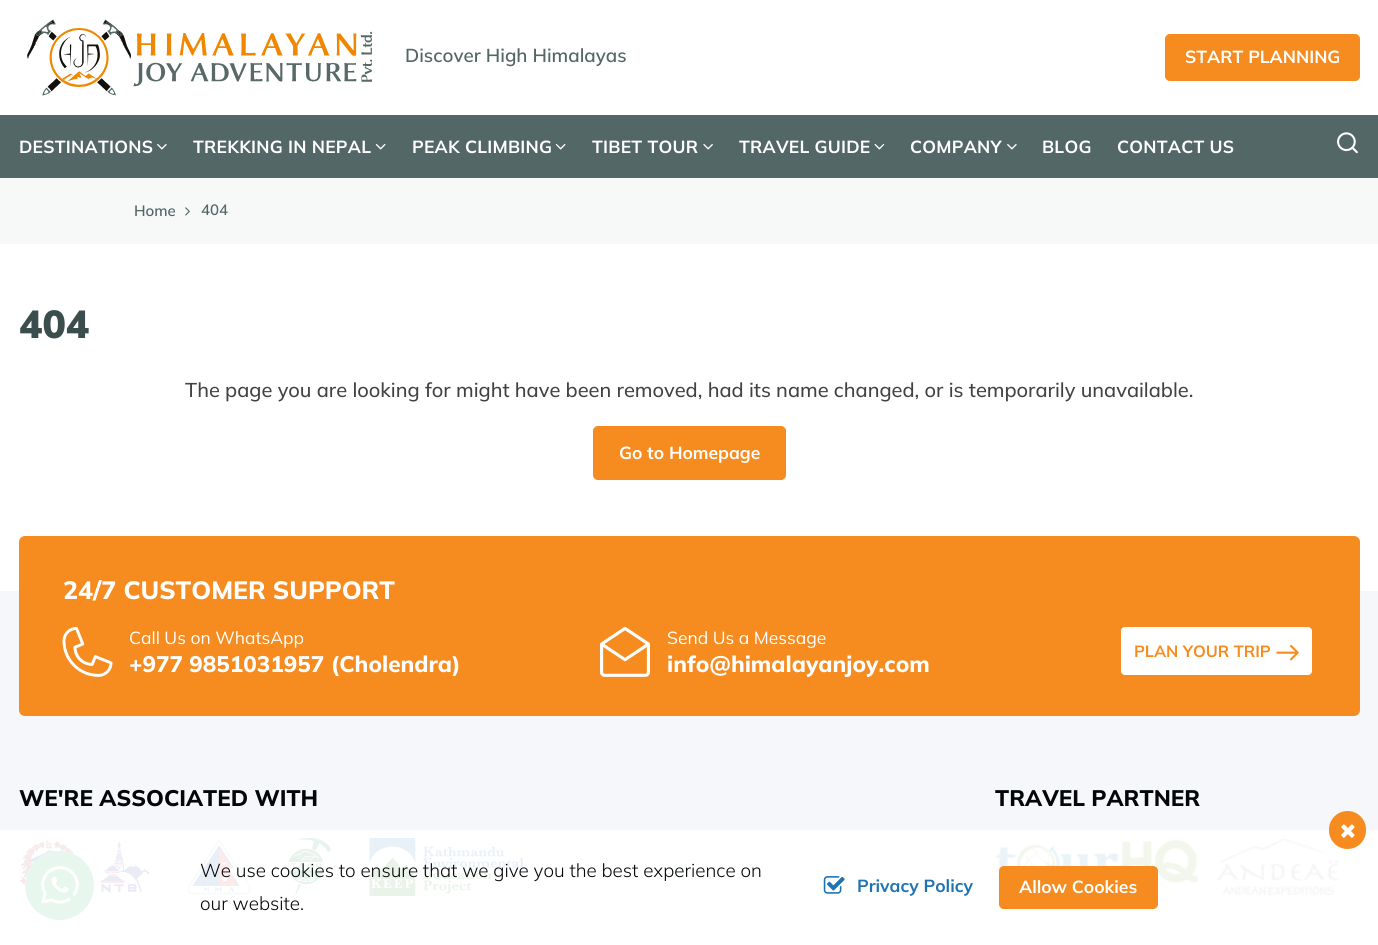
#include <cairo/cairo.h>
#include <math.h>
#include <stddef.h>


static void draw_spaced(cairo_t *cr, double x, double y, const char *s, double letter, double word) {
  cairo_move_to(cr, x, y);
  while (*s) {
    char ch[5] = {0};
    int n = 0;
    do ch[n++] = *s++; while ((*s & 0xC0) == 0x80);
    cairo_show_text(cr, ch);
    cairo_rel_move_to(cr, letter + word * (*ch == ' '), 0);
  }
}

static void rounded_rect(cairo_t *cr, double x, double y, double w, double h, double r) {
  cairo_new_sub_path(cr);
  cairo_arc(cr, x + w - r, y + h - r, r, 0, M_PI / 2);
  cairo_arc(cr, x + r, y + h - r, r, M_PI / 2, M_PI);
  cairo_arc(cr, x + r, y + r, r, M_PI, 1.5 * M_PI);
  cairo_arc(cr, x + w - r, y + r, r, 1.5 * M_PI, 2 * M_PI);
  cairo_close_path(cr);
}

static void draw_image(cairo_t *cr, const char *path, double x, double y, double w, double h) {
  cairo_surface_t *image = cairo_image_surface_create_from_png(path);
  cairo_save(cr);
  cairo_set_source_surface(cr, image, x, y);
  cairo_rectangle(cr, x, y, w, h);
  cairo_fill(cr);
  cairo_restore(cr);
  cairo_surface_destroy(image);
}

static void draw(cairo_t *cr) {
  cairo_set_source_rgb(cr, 1, 1, 1);
  cairo_paint(cr);
  draw_image(cr, "images/1.png", 27, 19, 346, 77);
  cairo_set_source_rgb(cr, 246 / 255.0, 139 / 255.0, 31 / 255.0);
  rounded_rect(cr, 1165.5, 34.5, 194, 46, 4.5);
  cairo_fill_preserve(cr);
  cairo_set_line_width(cr, 1);
  cairo_stroke(cr);
  cairo_set_source_rgb(cr, 84 / 255.0, 103 / 255.0, 103 / 255.0);
  cairo_rectangle(cr, 0, 115, 1378, 63);
  cairo_fill(cr);
  draw_image(cr, "images/2.png", 157, 143, 10, 7);
  draw_image(cr, "images/3.png", 375, 143, 11, 7);
  draw_image(cr, "images/3.png", 555, 143, 11, 7);
  draw_image(cr, "images/4.png", 703, 143, 10, 7);
  draw_image(cr, "images/5.png", 874, 143, 11, 7);
  draw_image(cr, "images/2.png", 1007, 143, 10, 7);
  draw_image(cr, "images/6.png", 1337, 132, 21, 22);
  cairo_set_source_rgb(cr, 247 / 255.0, 249 / 255.0, 249 / 255.0);
  cairo_rectangle(cr, 0, 178, 1378, 66);
  cairo_fill(cr);
  draw_image(cr, "images/7.png", 185, 207, 5, 9);
  cairo_set_source_rgb(cr, 246 / 255.0, 139 / 255.0, 31 / 255.0);
  rounded_rect(cr, 593.5, 426.5, 192, 53, 4.5);
  cairo_fill_preserve(cr);
  cairo_stroke(cr);
  cairo_set_source_rgb(cr, 245 / 255.0, 247 / 255.0, 251 / 255.0);
  cairo_rectangle(cr, 0, 591, 1378, 239);
  cairo_fill(cr);
  cairo_set_source_rgb(cr, 246 / 255.0, 139 / 255.0, 31 / 255.0);
  rounded_rect(cr, 19, 536, 1341, 180, 6);
  cairo_fill(cr);
  draw_image(cr, "images/8.png", 62, 626, 51, 51);
  draw_image(cr, "images/9.png", 600, 626, 50, 51);
  cairo_set_source_rgb(cr, 1, 1, 1);
  rounded_rect(cr, 1120.5, 626.5, 192, 49, 4.5);
  cairo_fill_preserve(cr);
  cairo_set_source_rgb(cr, 246 / 255.0, 139 / 255.0, 31 / 255.0);
  cairo_stroke(cr);
  draw_image(cr, "images/10.png", 1276, 645, 23, 16);
  draw_image(cr, "images/11.png", 19, 840, 55, 45);
  draw_image(cr, "images/12.png", 100, 841, 50, 51);
  draw_image(cr, "images/13.png", 188, 840, 62, 54);
  draw_image(cr, "images/14.png", 288, 838, 43, 58);
  draw_image(cr, "images/15.png", 369, 838, 155, 58);
  draw_image(cr, "images/16.png", 995, 840, 203, 44);
  draw_image(cr, "images/17.png", 1216, 837, 125, 59);
  cairo_set_source_rgb(cr, 231 / 255.0, 247 / 255.0, 238 / 255.0);
  cairo_arc(cr, 59.5, 885.5, 34.5, 0, 2 * M_PI);
  cairo_fill(cr);
  draw_image(cr, "images/18.png", 41, 866, 38, 38);
  cairo_set_source_rgb(cr, 246 / 255.0, 139 / 255.0, 31 / 255.0);
  rounded_rect(cr, 1329, 811, 37, 38, 18.5);
  cairo_fill(cr);
  draw_image(cr, "images/19.png", 1341, 824, 14, 14);
  draw_image(cr, "images/20.png", 823, 876, 22, 18);
  rounded_rect(cr, 999.5, 866.5, 158, 42, 4.5);
  cairo_fill_preserve(cr);
  cairo_stroke(cr);
  cairo_select_font_face(cr, "Mulish SemiBold", CAIRO_FONT_SLANT_NORMAL, CAIRO_FONT_WEIGHT_NORMAL);
  cairo_set_font_size(cr, 18.75);
  cairo_set_source_rgb(cr, 84 / 255.0, 103 / 255.0, 103 / 255.0);
  cairo_move_to(cr, 405, 62);
  cairo_show_text(cr, "Discover High Himalayas");
  cairo_select_font_face(cr, "Mulish", CAIRO_FONT_SLANT_NORMAL, CAIRO_FONT_WEIGHT_BOLD);
  cairo_set_font_size(cr, 17.5);
  cairo_set_source_rgb(cr, 1, 1, 1);
  cairo_move_to(cr, 1185, 63);
  cairo_show_text(cr, "START PLANNING");
  draw_spaced(cr, 19, 153, "DESTINATIONS", 0.25, 0);
  draw_spaced(cr, 193, 153, "TREKKING IN NEPAL", 0.25, 0);
  draw_spaced(cr, 412, 153, "PEAK CLIMBING", 0.25, 0);
  draw_spaced(cr, 592, 153, "TIBET TOUR", 0.25, 0);
  draw_spaced(cr, 739, 153, "TRAVEL GUIDE", 0.25, 0);
  draw_spaced(cr, 910, 153, "COMPANY", 0.25, 0);
  draw_spaced(cr, 1042, 153, "BLOG", 0.25, 0);
  draw_spaced(cr, 1117, 153, "CONTACT US", 0.25, 0);
  cairo_select_font_face(cr, "Mulish SemiBold", CAIRO_FONT_SLANT_NORMAL, CAIRO_FONT_WEIGHT_NORMAL);
  cairo_set_font_size(cr, 15);
  cairo_set_source_rgb(cr, 84 / 255.0, 103 / 255.0, 103 / 255.0);
  cairo_move_to(cr, 134, 216);
  cairo_show_text(cr, "Home");
  cairo_move_to(cr, 201, 215);
  cairo_show_text(cr, "404");
  cairo_select_font_face(cr, "Mulish Black", CAIRO_FONT_SLANT_NORMAL, CAIRO_FONT_WEIGHT_NORMAL);
  cairo_set_font_size(cr, 39);
  cairo_set_source_rgb(cr, 60 / 255.0, 77 / 255.0, 77 / 255.0);
  cairo_move_to(cr, 19, 338);
  cairo_show_text(cr, "404");
  cairo_select_font_face(cr, "Mulish Medium", CAIRO_FONT_SLANT_NORMAL, CAIRO_FONT_WEIGHT_NORMAL);
  cairo_set_font_size(cr, 20);
  cairo_set_source_rgb(cr, 66 / 255.0, 66 / 255.0, 66 / 255.0);
  cairo_move_to(cr, 185, 397);
  cairo_show_text(cr, "The page you are looking for might have been removed, had its name changed, or is temporarily unavailable.");
  cairo_select_font_face(cr, "Mulish", CAIRO_FONT_SLANT_NORMAL, CAIRO_FONT_WEIGHT_BOLD);
  cairo_set_font_size(cr, 17.5);
  cairo_set_source_rgb(cr, 1, 1, 1);
  cairo_move_to(cr, 619, 459);
  cairo_show_text(cr, "Go to Homepage");
  cairo_select_font_face(cr, "Mulish ExtraBold", CAIRO_FONT_SLANT_NORMAL, CAIRO_FONT_WEIGHT_NORMAL);
  cairo_set_font_size(cr, 25);
  cairo_move_to(cr, 63, 599);
  cairo_show_text(cr, "24/7 CUSTOMER SUPPORT");
  cairo_select_font_face(cr, "Mulish", CAIRO_FONT_SLANT_NORMAL, CAIRO_FONT_WEIGHT_NORMAL);
  cairo_set_font_size(cr, 17.5);
  cairo_move_to(cr, 129, 644);
  cairo_show_text(cr, "Call Us on WhatsApp");
  cairo_select_font_face(cr, "Mulish ExtraBold", CAIRO_FONT_SLANT_NORMAL, CAIRO_FONT_WEIGHT_NORMAL);
  cairo_set_font_size(cr, 22.5);
  cairo_move_to(cr, 129, 672);
  cairo_show_text(cr, "+977 9851031957 (Cholendra)");
  cairo_select_font_face(cr, "Mulish", CAIRO_FONT_SLANT_NORMAL, CAIRO_FONT_WEIGHT_NORMAL);
  cairo_set_font_size(cr, 17.5);
  cairo_move_to(cr, 667, 644);
  cairo_show_text(cr, "Send Us a Message");
  cairo_select_font_face(cr, "Mulish ExtraBold", CAIRO_FONT_SLANT_NORMAL, CAIRO_FONT_WEIGHT_NORMAL);
  cairo_set_font_size(cr, 22.5);
  cairo_move_to(cr, 667, 672);
  cairo_show_text(cr, "info@himalayanjoy.com");
  cairo_select_font_face(cr, "Mulish", CAIRO_FONT_SLANT_NORMAL, CAIRO_FONT_WEIGHT_BOLD);
  cairo_set_font_size(cr, 16.25);
  cairo_set_source_rgb(cr, 246 / 255.0, 139 / 255.0, 31 / 255.0);
  cairo_move_to(cr, 1134, 657);
  cairo_show_text(cr, "PLAN YOUR TRIP");
  cairo_select_font_face(cr, "Mulish ExtraBold", CAIRO_FONT_SLANT_NORMAL, CAIRO_FONT_WEIGHT_NORMAL);
  cairo_set_font_size(cr, 22.5);
  cairo_set_source_rgb(cr, 4 / 255.0, 7 / 255.0, 7 / 255.0);
  cairo_move_to(cr, 19, 806);
  cairo_show_text(cr, "WE'RE ASSOCIATED WITH");
  cairo_move_to(cr, 995, 806);
  cairo_show_text(cr, "TRAVEL PARTNER");
  cairo_select_font_face(cr, "Mulish Light", CAIRO_FONT_SLANT_NORMAL, CAIRO_FONT_WEIGHT_NORMAL);
  cairo_set_font_size(cr, 18.75);
  cairo_move_to(cr, 200, 877);
  cairo_show_text(cr, "We use cookies to ensure that we give you the best experience on");
  cairo_move_to(cr, 200, 910);
  cairo_show_text(cr, "our website.");
  cairo_select_font_face(cr, "Mulish", CAIRO_FONT_SLANT_NORMAL, CAIRO_FONT_WEIGHT_BOLD);
  cairo_set_font_size(cr, 17.5);
  cairo_set_source_rgb(cr, 31 / 255.0, 115 / 255.0, 179 / 255.0);
  cairo_move_to(cr, 857, 892);
  cairo_show_text(cr, "Privacy Policy");
  cairo_set_source_rgb(cr, 1, 1, 1);
  cairo_move_to(cr, 1019, 893);
  cairo_show_text(cr, "Allow Cookies");
}

int main(void) {
  cairo_surface_t *surface = cairo_image_surface_create(CAIRO_FORMAT_RGB24, 1378, 945);
  cairo_t *cr = cairo_create(surface);
  cairo_font_options_t *options = cairo_font_options_create();
  cairo_font_options_set_hint_metrics(options, CAIRO_HINT_METRICS_OFF);
  cairo_font_options_set_hint_style(options, CAIRO_HINT_STYLE_NONE);
  cairo_set_font_options(cr, options);
  cairo_set_miter_limit(cr, 4);
  draw(cr);
  cairo_surface_write_to_png(surface, "out.png");
  cairo_font_options_destroy(options);
  cairo_destroy(cr);
  cairo_surface_destroy(surface);
  return 0;
}
